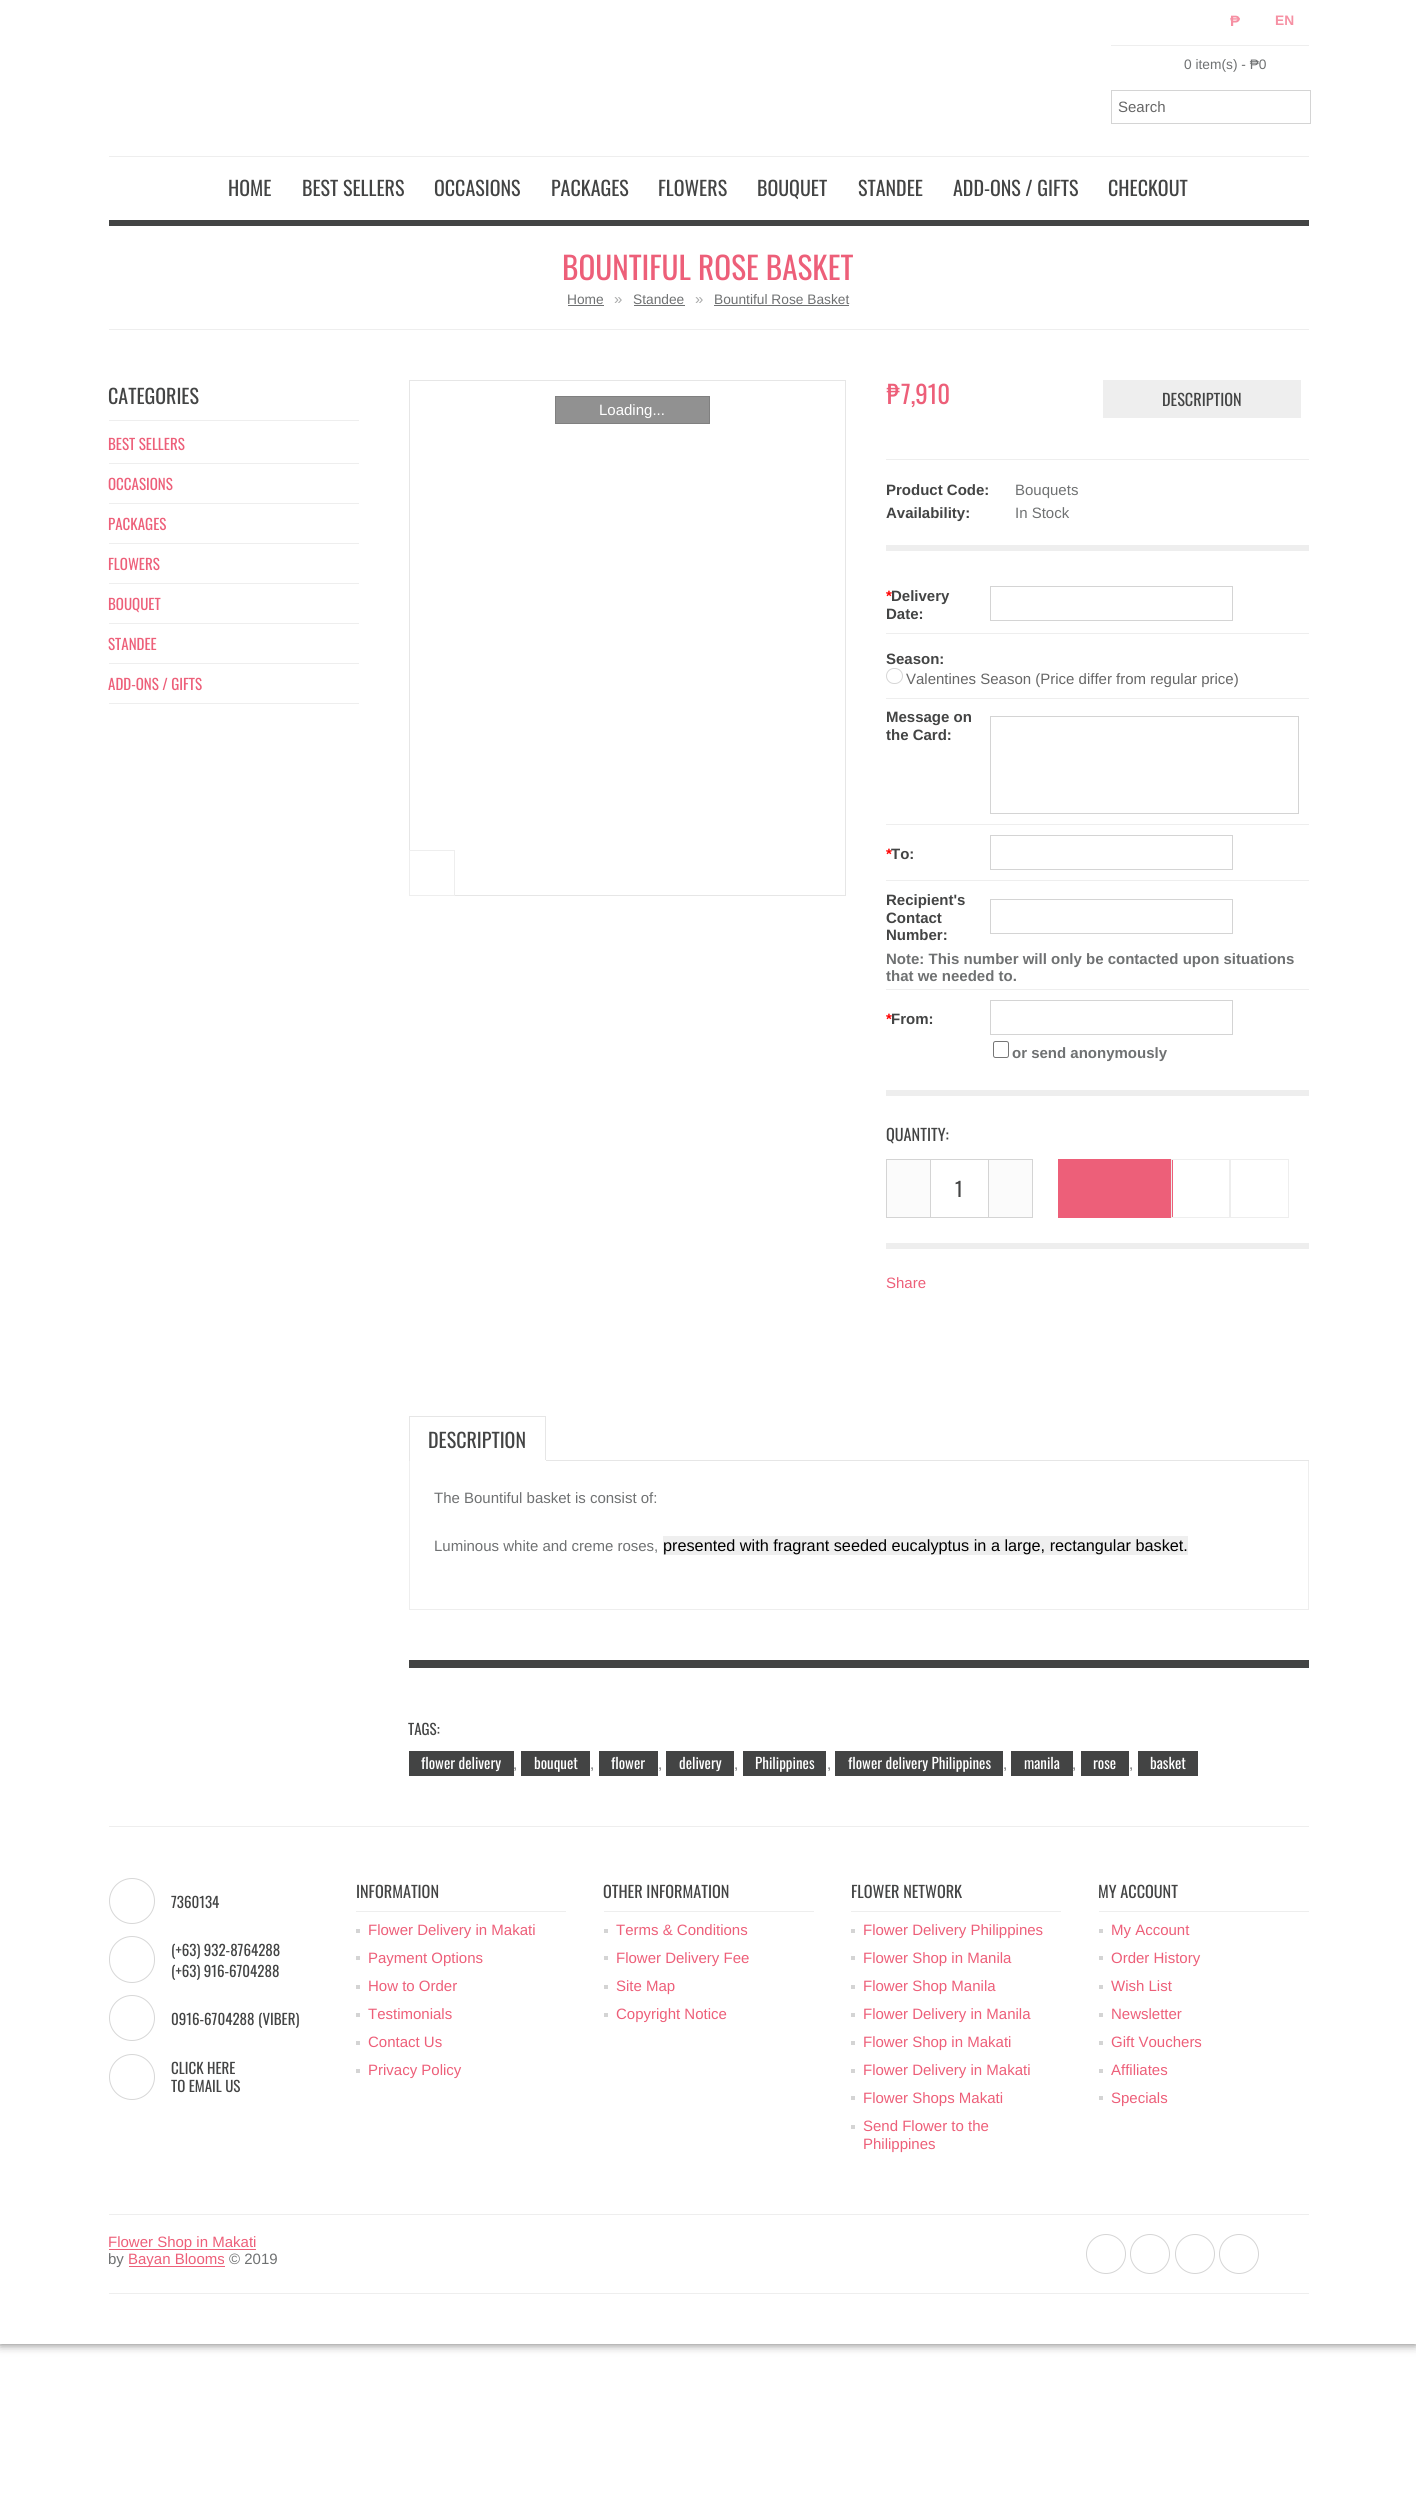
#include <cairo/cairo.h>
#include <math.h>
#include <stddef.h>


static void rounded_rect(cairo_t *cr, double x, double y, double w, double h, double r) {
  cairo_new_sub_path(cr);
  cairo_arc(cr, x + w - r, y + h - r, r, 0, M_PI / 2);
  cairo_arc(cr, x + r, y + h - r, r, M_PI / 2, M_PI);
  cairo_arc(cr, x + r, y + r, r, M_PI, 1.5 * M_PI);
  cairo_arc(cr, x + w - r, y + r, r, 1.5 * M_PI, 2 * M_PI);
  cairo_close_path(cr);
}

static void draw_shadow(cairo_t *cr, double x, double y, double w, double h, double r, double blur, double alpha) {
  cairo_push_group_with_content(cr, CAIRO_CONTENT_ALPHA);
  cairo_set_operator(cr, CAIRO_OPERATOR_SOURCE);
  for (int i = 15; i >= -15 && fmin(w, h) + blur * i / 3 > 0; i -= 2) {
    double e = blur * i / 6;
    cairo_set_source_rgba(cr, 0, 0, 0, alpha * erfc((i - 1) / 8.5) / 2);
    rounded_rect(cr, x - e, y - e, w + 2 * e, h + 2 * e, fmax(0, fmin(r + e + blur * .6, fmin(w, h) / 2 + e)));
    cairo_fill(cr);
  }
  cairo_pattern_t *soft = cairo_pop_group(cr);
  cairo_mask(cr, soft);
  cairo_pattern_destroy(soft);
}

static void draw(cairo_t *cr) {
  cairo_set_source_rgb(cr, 1, 1, 1);
  cairo_paint(cr);
  cairo_set_source_rgb(cr, 107 / 255.0, 106 / 255.0, 106 / 255.0);
  draw_shadow(cr, 0, 0, 1416, 2344, 0, 5, 1);
  cairo_set_source_rgb(cr, 1, 1, 1);
  cairo_rectangle(cr, 0, 0, 1416, 2344);
  cairo_fill(cr);
  cairo_set_source_rgb(cr, 238 / 255.0, 238 / 255.0, 238 / 255.0);
  cairo_rectangle(cr, 1111, 45, 198, 1);
  cairo_fill(cr);
  cairo_rectangle(cr, 1111.5, 90.5, 199, 33);
  cairo_set_source_rgb(cr, 212 / 255.0, 212 / 255.0, 212 / 255.0);
  cairo_set_line_width(cr, 1);
  cairo_stroke(cr);
  cairo_set_source_rgb(cr, 238 / 255.0, 238 / 255.0, 238 / 255.0);
  cairo_rectangle(cr, 109, 156, 1200, 1);
  cairo_fill(cr);
  cairo_set_source_rgb(cr, 67 / 255.0, 68 / 255.0, 68 / 255.0);
  cairo_rectangle(cr, 109, 220, 1200, 6);
  cairo_fill(cr);
  cairo_set_source_rgb(cr, 238 / 255.0, 238 / 255.0, 238 / 255.0);
  cairo_rectangle(cr, 109, 329, 1200, 1);
  cairo_fill(cr);
  cairo_set_source_rgb(cr, 111 / 255.0, 113 / 255.0, 114 / 255.0);
  cairo_rectangle(cr, 568, 305, 36, 1);
  cairo_fill(cr);
  cairo_rectangle(cr, 634, 305, 51, 1);
  cairo_fill(cr);
  cairo_rectangle(cr, 714, 305, 135, 1);
  cairo_fill(cr);
  cairo_set_source_rgb(cr, 238 / 255.0, 238 / 255.0, 238 / 255.0);
  cairo_rectangle(cr, 109, 420, 250, 1);
  cairo_fill(cr);
  cairo_rectangle(cr, 109, 463, 250, 1);
  cairo_fill(cr);
  cairo_rectangle(cr, 109, 503, 250, 1);
  cairo_fill(cr);
  cairo_rectangle(cr, 109, 543, 250, 1);
  cairo_fill(cr);
  cairo_rectangle(cr, 109, 583, 250, 1);
  cairo_fill(cr);
  cairo_rectangle(cr, 109, 623, 250, 1);
  cairo_fill(cr);
  cairo_rectangle(cr, 109, 663, 250, 1);
  cairo_fill(cr);
  cairo_rectangle(cr, 109, 703, 250, 1);
  cairo_fill(cr);
  cairo_set_source_rgb(cr, 67 / 255.0, 68 / 255.0, 68 / 255.0);
  cairo_rectangle(cr, 409, 1660, 900, 8);
  cairo_fill(cr);
  cairo_rectangle(cr, 409.5, 380.5, 436, 515);
  cairo_set_source_rgb(cr, 230 / 255.0, 230 / 255.0, 230 / 255.0);
  cairo_stroke(cr);
  cairo_set_source_rgb(cr, 145 / 255.0, 145 / 255.0, 145 / 255.0);
  cairo_rectangle(cr, 555.5, 396.5, 154, 27);
  cairo_fill_preserve(cr);
  cairo_set_source_rgb(cr, 128 / 255.0, 128 / 255.0, 128 / 255.0);
  cairo_stroke(cr);
  cairo_rectangle(cr, 409.5, 850.5, 45, 45);
  cairo_set_source_rgb(cr, 238 / 255.0, 238 / 255.0, 238 / 255.0);
  cairo_stroke(cr);
  cairo_rectangle(cr, 886, 459, 423, 1);
  cairo_fill(cr);
  cairo_rectangle(cr, 1103, 380, 198, 38);
  cairo_fill(cr);
  cairo_rectangle(cr, 886, 545, 423, 6);
  cairo_fill(cr);
  cairo_rectangle(cr, 886, 633, 423, 1);
  cairo_fill(cr);
  cairo_rectangle(cr, 990.5, 586.5, 242, 34);
  cairo_set_source_rgb(cr, 212 / 255.0, 212 / 255.0, 212 / 255.0);
  cairo_stroke(cr);
  cairo_set_source_rgb(cr, 238 / 255.0, 238 / 255.0, 238 / 255.0);
  cairo_rectangle(cr, 886, 698, 423, 1);
  cairo_fill(cr);
  rounded_rect(cr, 886.5, 668.5, 16, 15, 7.5);
  cairo_set_source_rgb(cr, 214 / 255.0, 214 / 255.0, 214 / 255.0);
  cairo_stroke(cr);
  cairo_set_source_rgb(cr, 238 / 255.0, 238 / 255.0, 238 / 255.0);
  cairo_rectangle(cr, 886, 824, 423, 1);
  cairo_fill(cr);
  cairo_rectangle(cr, 990.5, 716.5, 308, 97);
  cairo_set_source_rgb(cr, 212 / 255.0, 212 / 255.0, 212 / 255.0);
  cairo_stroke(cr);
  cairo_set_source_rgb(cr, 238 / 255.0, 238 / 255.0, 238 / 255.0);
  cairo_rectangle(cr, 886, 880, 423, 1);
  cairo_fill(cr);
  cairo_rectangle(cr, 990.5, 835.5, 242, 34);
  cairo_set_source_rgb(cr, 212 / 255.0, 212 / 255.0, 212 / 255.0);
  cairo_stroke(cr);
  cairo_set_source_rgb(cr, 238 / 255.0, 238 / 255.0, 238 / 255.0);
  cairo_rectangle(cr, 886, 989, 423, 1);
  cairo_fill(cr);
  cairo_rectangle(cr, 990.5, 899.5, 242, 34);
  cairo_set_source_rgb(cr, 212 / 255.0, 212 / 255.0, 212 / 255.0);
  cairo_stroke(cr);
  cairo_rectangle(cr, 990.5, 1000.5, 242, 34);
  cairo_stroke(cr);
  rounded_rect(cr, 993.5, 1041.5, 15, 16, 2);
  cairo_set_source_rgb(cr, 118 / 255.0, 118 / 255.0, 118 / 255.0);
  cairo_stroke(cr);
  cairo_set_source_rgb(cr, 238 / 255.0, 238 / 255.0, 238 / 255.0);
  cairo_rectangle(cr, 886, 1090, 423, 6);
  cairo_fill(cr);
  cairo_rectangle(cr, 886, 1243, 423, 6);
  cairo_fill(cr);
  cairo_set_source_rgb(cr, 251 / 255.0, 251 / 255.0, 251 / 255.0);
  cairo_rectangle(cr, 886.5, 1159.5, 44, 58);
  cairo_fill_preserve(cr);
  cairo_set_source_rgb(cr, 212 / 255.0, 212 / 255.0, 212 / 255.0);
  cairo_stroke(cr);
  cairo_rectangle(cr, 930.5, 1159.5, 58, 58);
  cairo_stroke(cr);
  cairo_set_source_rgb(cr, 251 / 255.0, 251 / 255.0, 251 / 255.0);
  cairo_rectangle(cr, 988.5, 1159.5, 44, 58);
  cairo_fill_preserve(cr);
  cairo_set_source_rgb(cr, 212 / 255.0, 212 / 255.0, 212 / 255.0);
  cairo_stroke(cr);
  cairo_set_source_rgb(cr, 237 / 255.0, 95 / 255.0, 121 / 255.0);
  cairo_rectangle(cr, 1058, 1159, 115, 59);
  cairo_fill(cr);
  cairo_rectangle(cr, 1171.5, 1159.5, 58, 58);
  cairo_set_source_rgb(cr, 238 / 255.0, 238 / 255.0, 238 / 255.0);
  cairo_stroke(cr);
  cairo_rectangle(cr, 1230.5, 1159.5, 58, 58);
  cairo_stroke(cr);
  cairo_set_source_rgb(cr, 230 / 255.0, 230 / 255.0, 230 / 255.0);
  cairo_rectangle(cr, 546, 1460, 763, 1);
  cairo_fill(cr);
  cairo_rectangle(cr, 409, 1416, 137, 1);
  cairo_fill(cr);
  cairo_rectangle(cr, 545, 1416, 1, 45);
  cairo_fill(cr);
  cairo_set_source_rgb(cr, 1, 1, 1);
  cairo_rectangle(cr, 545, 1460, 1, 1);
  cairo_fill(cr);
  cairo_set_source_rgb(cr, 230 / 255.0, 230 / 255.0, 230 / 255.0);
  cairo_rectangle(cr, 409, 1416, 1, 45);
  cairo_fill(cr);
  cairo_set_source_rgb(cr, 238 / 255.0, 238 / 255.0, 238 / 255.0);
  cairo_rectangle(cr, 1308, 1461, 1, 149);
  cairo_fill(cr);
  cairo_rectangle(cr, 409, 1609, 900, 1);
  cairo_fill(cr);
  cairo_rectangle(cr, 409, 1461, 1, 149);
  cairo_fill(cr);
  cairo_set_source_rgb(cr, 239 / 255.0, 239 / 255.0, 239 / 255.0);
  cairo_rectangle(cr, 663, 1536, 525, 19);
  cairo_fill(cr);
  cairo_set_source_rgb(cr, 67 / 255.0, 68 / 255.0, 68 / 255.0);
  cairo_rectangle(cr, 409, 1751, 105, 25);
  cairo_fill(cr);
  cairo_rectangle(cr, 521, 1751, 69, 25);
  cairo_fill(cr);
  cairo_rectangle(cr, 599, 1751, 59, 25);
  cairo_fill(cr);
  cairo_rectangle(cr, 666, 1751, 68, 25);
  cairo_fill(cr);
  cairo_rectangle(cr, 743, 1751, 83, 25);
  cairo_fill(cr);
  cairo_rectangle(cr, 835, 1751, 168, 25);
  cairo_fill(cr);
  cairo_rectangle(cr, 1011, 1751, 62, 25);
  cairo_fill(cr);
  cairo_rectangle(cr, 1081, 1751, 48, 25);
  cairo_fill(cr);
  cairo_rectangle(cr, 1138, 1751, 60, 25);
  cairo_fill(cr);
  cairo_set_source_rgb(cr, 238 / 255.0, 238 / 255.0, 238 / 255.0);
  cairo_rectangle(cr, 109, 1826, 1200, 1);
  cairo_fill(cr);
  cairo_arc(cr, 132, 1901, 22.5, 0, 2 * M_PI);
  cairo_set_source_rgb(cr, 215 / 255.0, 215 / 255.0, 215 / 255.0);
  cairo_stroke(cr);
  rounded_rect(cr, 109.5, 1936.5, 45, 46, 22.5);
  cairo_stroke(cr);
  cairo_arc(cr, 132, 2018, 22.5, 0, 2 * M_PI);
  cairo_stroke(cr);
  cairo_arc(cr, 132, 2077, 22.5, 0, 2 * M_PI);
  cairo_stroke(cr);
  cairo_set_source_rgb(cr, 238 / 255.0, 238 / 255.0, 238 / 255.0);
  cairo_rectangle(cr, 356, 1911, 210, 1);
  cairo_fill(cr);
  cairo_set_source_rgb(cr, 212 / 255.0, 212 / 255.0, 212 / 255.0);
  cairo_rectangle(cr, 356, 1929, 4, 4);
  cairo_fill(cr);
  cairo_rectangle(cr, 356, 1956, 4, 4);
  cairo_fill(cr);
  cairo_rectangle(cr, 356, 1985, 4, 4);
  cairo_fill(cr);
  cairo_rectangle(cr, 356, 2013, 4, 4);
  cairo_fill(cr);
  cairo_rectangle(cr, 356, 2041, 4, 4);
  cairo_fill(cr);
  cairo_rectangle(cr, 356, 2069, 4, 4);
  cairo_fill(cr);
  cairo_set_source_rgb(cr, 238 / 255.0, 238 / 255.0, 238 / 255.0);
  cairo_rectangle(cr, 604, 1911, 210, 1);
  cairo_fill(cr);
  cairo_set_source_rgb(cr, 212 / 255.0, 212 / 255.0, 212 / 255.0);
  cairo_rectangle(cr, 604, 1929, 4, 4);
  cairo_fill(cr);
  cairo_rectangle(cr, 604, 1956, 4, 4);
  cairo_fill(cr);
  cairo_rectangle(cr, 604, 1985, 4, 4);
  cairo_fill(cr);
  cairo_rectangle(cr, 604, 2013, 4, 4);
  cairo_fill(cr);
  cairo_set_source_rgb(cr, 238 / 255.0, 238 / 255.0, 238 / 255.0);
  cairo_rectangle(cr, 851, 1911, 210, 1);
  cairo_fill(cr);
  cairo_set_source_rgb(cr, 212 / 255.0, 212 / 255.0, 212 / 255.0);
  cairo_rectangle(cr, 851, 1929, 4, 4);
  cairo_fill(cr);
  cairo_rectangle(cr, 851, 1956, 4, 4);
  cairo_fill(cr);
  cairo_rectangle(cr, 851, 1985, 4, 4);
  cairo_fill(cr);
  cairo_rectangle(cr, 851, 2013, 4, 4);
  cairo_fill(cr);
  cairo_rectangle(cr, 851, 2041, 4, 4);
  cairo_fill(cr);
  cairo_rectangle(cr, 851, 2069, 4, 4);
  cairo_fill(cr);
  cairo_rectangle(cr, 851, 2096, 4, 4);
  cairo_fill(cr);
  cairo_rectangle(cr, 851, 2125, 4, 4);
  cairo_fill(cr);
  cairo_set_source_rgb(cr, 238 / 255.0, 238 / 255.0, 238 / 255.0);
  cairo_rectangle(cr, 1099, 1911, 210, 1);
  cairo_fill(cr);
  cairo_set_source_rgb(cr, 212 / 255.0, 212 / 255.0, 212 / 255.0);
  cairo_rectangle(cr, 1099, 1929, 4, 4);
  cairo_fill(cr);
  cairo_rectangle(cr, 1099, 1956, 4, 4);
  cairo_fill(cr);
  cairo_rectangle(cr, 1099, 1985, 4, 4);
  cairo_fill(cr);
  cairo_rectangle(cr, 1099, 2013, 4, 4);
  cairo_fill(cr);
  cairo_rectangle(cr, 1099, 2041, 4, 4);
  cairo_fill(cr);
  cairo_rectangle(cr, 1099, 2069, 4, 4);
  cairo_fill(cr);
  cairo_rectangle(cr, 1099, 2096, 4, 4);
  cairo_fill(cr);
  cairo_set_source_rgb(cr, 238 / 255.0, 238 / 255.0, 238 / 255.0);
  cairo_rectangle(cr, 109, 2214, 1200, 1);
  cairo_fill(cr);
  cairo_rectangle(cr, 109, 2293, 1200, 1);
  cairo_fill(cr);
  cairo_set_source_rgb(cr, 237 / 255.0, 95 / 255.0, 121 / 255.0);
  cairo_rectangle(cr, 109, 2249, 147, 1);
  cairo_fill(cr);
  cairo_rectangle(cr, 129, 2266, 96, 1);
  cairo_fill(cr);
  cairo_arc(cr, 1106, 2254, 19.5, 0, 2 * M_PI);
  cairo_set_source_rgb(cr, 213 / 255.0, 213 / 255.0, 213 / 255.0);
  cairo_stroke(cr);
  cairo_arc(cr, 1150, 2254, 19.5, 0, 2 * M_PI);
  cairo_stroke(cr);
  cairo_arc(cr, 1195, 2254, 19.5, 0, 2 * M_PI);
  cairo_stroke(cr);
  cairo_arc(cr, 1239, 2254, 19.5, 0, 2 * M_PI);
  cairo_stroke(cr);
  cairo_select_font_face(cr, "Liberation Sans", CAIRO_FONT_SLANT_NORMAL, CAIRO_FONT_WEIGHT_BOLD);
  cairo_set_font_size(cr, 15);
  cairo_set_source_rgb(cr, 246 / 255.0, 144 / 255.0, 163 / 255.0);
  cairo_move_to(cr, 1230, 26);
  cairo_show_text(cr, "₱");
  cairo_set_font_size(cr, 13.75);
  cairo_move_to(cr, 1275, 25);
  cairo_show_text(cr, "EN");
  cairo_select_font_face(cr, "Liberation Sans", CAIRO_FONT_SLANT_NORMAL, CAIRO_FONT_WEIGHT_NORMAL);
  cairo_set_source_rgb(cr, 111 / 255.0, 113 / 255.0, 114 / 255.0);
  cairo_move_to(cr, 1184, 69);
  cairo_show_text(cr, "0 item(s) - ₱0");
  cairo_set_font_size(cr, 15);
  cairo_set_source_rgb(cr, 102 / 255.0, 102 / 255.0, 102 / 255.0);
  cairo_move_to(cr, 1118, 112);
  cairo_show_text(cr, "Search");
  cairo_select_font_face(cr, "Oswald", CAIRO_FONT_SLANT_NORMAL, CAIRO_FONT_WEIGHT_NORMAL);
  cairo_set_font_size(cr, 20);
  cairo_set_source_rgb(cr, 67 / 255.0, 68 / 255.0, 68 / 255.0);
  cairo_move_to(cr, 228, 196);
  cairo_show_text(cr, "HOME");
  cairo_move_to(cr, 302, 196);
  cairo_show_text(cr, "BEST SELLERS");
  cairo_move_to(cr, 434, 196);
  cairo_show_text(cr, "OCCASIONS");
  cairo_move_to(cr, 551, 196);
  cairo_show_text(cr, "PACKAGES");
  cairo_move_to(cr, 658, 196);
  cairo_show_text(cr, "FLOWERS");
  cairo_move_to(cr, 757, 196);
  cairo_show_text(cr, "BOUQUET");
  cairo_move_to(cr, 858, 196);
  cairo_show_text(cr, "STANDEE");
  cairo_move_to(cr, 953, 196);
  cairo_show_text(cr, "ADD-ONS / GIFTS");
  cairo_move_to(cr, 1108, 196);
  cairo_show_text(cr, "CHECKOUT");
  cairo_set_font_size(cr, 31.25);
  cairo_set_source_rgb(cr, 237 / 255.0, 95 / 255.0, 121 / 255.0);
  cairo_move_to(cr, 562, 280);
  cairo_show_text(cr, "BOUNTIFUL ROSE BASKET");
  cairo_select_font_face(cr, "Liberation Sans", CAIRO_FONT_SLANT_NORMAL, CAIRO_FONT_WEIGHT_NORMAL);
  cairo_set_font_size(cr, 13.75);
  cairo_set_source_rgb(cr, 111 / 255.0, 113 / 255.0, 114 / 255.0);
  cairo_move_to(cr, 567, 304);
  cairo_show_text(cr, "Home");
  cairo_set_font_size(cr, 15);
  cairo_set_source_rgb(cr, 169 / 255.0, 170 / 255.0, 170 / 255.0);
  cairo_move_to(cr, 614, 304);
  cairo_show_text(cr, "»");
  cairo_set_font_size(cr, 13.75);
  cairo_set_source_rgb(cr, 111 / 255.0, 113 / 255.0, 114 / 255.0);
  cairo_move_to(cr, 633, 304);
  cairo_show_text(cr, "Standee");
  cairo_set_font_size(cr, 15);
  cairo_set_source_rgb(cr, 169 / 255.0, 170 / 255.0, 170 / 255.0);
  cairo_move_to(cr, 695, 304);
  cairo_show_text(cr, "»");
  cairo_set_font_size(cr, 13.75);
  cairo_set_source_rgb(cr, 111 / 255.0, 113 / 255.0, 114 / 255.0);
  cairo_move_to(cr, 714, 304);
  cairo_show_text(cr, "Bountiful Rose Basket");
  cairo_select_font_face(cr, "Oswald", CAIRO_FONT_SLANT_NORMAL, CAIRO_FONT_WEIGHT_NORMAL);
  cairo_set_font_size(cr, 20);
  cairo_set_source_rgb(cr, 67 / 255.0, 68 / 255.0, 68 / 255.0);
  cairo_move_to(cr, 108, 404);
  cairo_show_text(cr, "CATEGORIES");
  cairo_set_font_size(cr, 15);
  cairo_set_source_rgb(cr, 237 / 255.0, 95 / 255.0, 121 / 255.0);
  cairo_move_to(cr, 108, 450);
  cairo_show_text(cr, "BEST SELLERS");
  cairo_move_to(cr, 108, 490);
  cairo_show_text(cr, "OCCASIONS");
  cairo_move_to(cr, 108, 530);
  cairo_show_text(cr, "PACKAGES");
  cairo_move_to(cr, 108, 570);
  cairo_show_text(cr, "FLOWERS");
  cairo_move_to(cr, 108, 610);
  cairo_show_text(cr, "BOUQUET");
  cairo_move_to(cr, 108, 650);
  cairo_show_text(cr, "STANDEE");
  cairo_move_to(cr, 108, 690);
  cairo_show_text(cr, "ADD-ONS / GIFTS");
  cairo_select_font_face(cr, "Liberation Sans", CAIRO_FONT_SLANT_NORMAL, CAIRO_FONT_WEIGHT_NORMAL);
  cairo_set_source_rgb(cr, 1, 1, 1);
  cairo_move_to(cr, 599, 415);
  cairo_show_text(cr, "Loading...");
  cairo_select_font_face(cr, "Oswald", CAIRO_FONT_SLANT_NORMAL, CAIRO_FONT_WEIGHT_NORMAL);
  cairo_set_font_size(cr, 25);
  cairo_set_source_rgb(cr, 237 / 255.0, 95 / 255.0, 121 / 255.0);
  cairo_move_to(cr, 886, 404);
  cairo_show_text(cr, "₱7,910");
  cairo_set_font_size(cr, 16.25);
  cairo_set_source_rgb(cr, 67 / 255.0, 68 / 255.0, 68 / 255.0);
  cairo_move_to(cr, 1162, 406);
  cairo_show_text(cr, "DESCRIPTION");
  cairo_select_font_face(cr, "Liberation Sans", CAIRO_FONT_SLANT_NORMAL, CAIRO_FONT_WEIGHT_BOLD);
  cairo_set_font_size(cr, 15);
  cairo_move_to(cr, 886, 495);
  cairo_show_text(cr, "Product Code:");
  cairo_select_font_face(cr, "Liberation Sans", CAIRO_FONT_SLANT_NORMAL, CAIRO_FONT_WEIGHT_NORMAL);
  cairo_set_source_rgb(cr, 111 / 255.0, 113 / 255.0, 114 / 255.0);
  cairo_move_to(cr, 1015, 495);
  cairo_show_text(cr, "Bouquets");
  cairo_select_font_face(cr, "Liberation Sans", CAIRO_FONT_SLANT_NORMAL, CAIRO_FONT_WEIGHT_BOLD);
  cairo_set_source_rgb(cr, 67 / 255.0, 68 / 255.0, 68 / 255.0);
  cairo_move_to(cr, 886, 518);
  cairo_show_text(cr, "Availability:");
  cairo_select_font_face(cr, "Liberation Sans", CAIRO_FONT_SLANT_NORMAL, CAIRO_FONT_WEIGHT_NORMAL);
  cairo_set_source_rgb(cr, 111 / 255.0, 113 / 255.0, 114 / 255.0);
  cairo_move_to(cr, 1015, 518);
  cairo_show_text(cr, "In Stock");
  cairo_select_font_face(cr, "Liberation Sans", CAIRO_FONT_SLANT_NORMAL, CAIRO_FONT_WEIGHT_BOLD);
  cairo_set_source_rgb(cr, 1, 0, 0);
  cairo_move_to(cr, 886, 601);
  cairo_show_text(cr, "*");
  cairo_set_source_rgb(cr, 67 / 255.0, 68 / 255.0, 68 / 255.0);
  cairo_move_to(cr, 891, 601);
  cairo_show_text(cr, "Delivery");
  cairo_move_to(cr, 886, 619);
  cairo_show_text(cr, "Date:");
  cairo_move_to(cr, 886, 664);
  cairo_show_text(cr, "Season:");
  cairo_select_font_face(cr, "Liberation Sans", CAIRO_FONT_SLANT_NORMAL, CAIRO_FONT_WEIGHT_NORMAL);
  cairo_set_source_rgb(cr, 102 / 255.0, 102 / 255.0, 102 / 255.0);
  cairo_move_to(cr, 906, 684);
  cairo_show_text(cr, "Valentines Season (Price differ from regular price)");
  cairo_select_font_face(cr, "Liberation Sans", CAIRO_FONT_SLANT_NORMAL, CAIRO_FONT_WEIGHT_BOLD);
  cairo_set_source_rgb(cr, 67 / 255.0, 68 / 255.0, 68 / 255.0);
  cairo_move_to(cr, 886, 722);
  cairo_show_text(cr, "Message on");
  cairo_move_to(cr, 886, 740);
  cairo_show_text(cr, "the Card:");
  cairo_set_source_rgb(cr, 1, 0, 0);
  cairo_move_to(cr, 886, 859);
  cairo_show_text(cr, "*");
  cairo_set_source_rgb(cr, 67 / 255.0, 68 / 255.0, 68 / 255.0);
  cairo_move_to(cr, 891, 859);
  cairo_show_text(cr, "To:");
  cairo_move_to(cr, 886, 905);
  cairo_show_text(cr, "Recipient's");
  cairo_move_to(cr, 886, 923);
  cairo_show_text(cr, "Contact");
  cairo_move_to(cr, 886, 940);
  cairo_show_text(cr, "Number:");
  cairo_set_source_rgb(cr, 111 / 255.0, 113 / 255.0, 114 / 255.0);
  cairo_move_to(cr, 886, 964);
  cairo_show_text(cr, "Note: This number will only be contacted upon situations");
  cairo_move_to(cr, 886, 981);
  cairo_show_text(cr, "that we needed to.");
  cairo_set_source_rgb(cr, 1, 0, 0);
  cairo_move_to(cr, 886, 1024);
  cairo_show_text(cr, "*");
  cairo_set_source_rgb(cr, 67 / 255.0, 68 / 255.0, 68 / 255.0);
  cairo_move_to(cr, 891, 1024);
  cairo_show_text(cr, "From:");
  cairo_set_source_rgb(cr, 111 / 255.0, 113 / 255.0, 114 / 255.0);
  cairo_move_to(cr, 1012, 1058);
  cairo_show_text(cr, "or send anonymously");
  cairo_select_font_face(cr, "Oswald", CAIRO_FONT_SLANT_NORMAL, CAIRO_FONT_WEIGHT_NORMAL);
  cairo_set_font_size(cr, 16.25);
  cairo_set_source_rgb(cr, 67 / 255.0, 68 / 255.0, 68 / 255.0);
  cairo_move_to(cr, 886, 1141);
  cairo_show_text(cr, "QUANTITY:");
  cairo_set_font_size(cr, 20);
  cairo_move_to(cr, 955, 1197);
  cairo_show_text(cr, "1");
  cairo_select_font_face(cr, "Liberation Sans", CAIRO_FONT_SLANT_NORMAL, CAIRO_FONT_WEIGHT_NORMAL);
  cairo_set_font_size(cr, 15);
  cairo_set_source_rgb(cr, 237 / 255.0, 95 / 255.0, 121 / 255.0);
  cairo_move_to(cr, 886, 1288);
  cairo_show_text(cr, "Share");
  cairo_select_font_face(cr, "Oswald", CAIRO_FONT_SLANT_NORMAL, CAIRO_FONT_WEIGHT_NORMAL);
  cairo_set_font_size(cr, 20);
  cairo_set_source_rgb(cr, 67 / 255.0, 68 / 255.0, 68 / 255.0);
  cairo_move_to(cr, 428, 1448);
  cairo_show_text(cr, "DESCRIPTION");
  cairo_select_font_face(cr, "Liberation Sans", CAIRO_FONT_SLANT_NORMAL, CAIRO_FONT_WEIGHT_NORMAL);
  cairo_set_font_size(cr, 15);
  cairo_set_source_rgb(cr, 111 / 255.0, 113 / 255.0, 114 / 255.0);
  cairo_move_to(cr, 434, 1503);
  cairo_show_text(cr, "The Bountiful basket is consist of:");
  cairo_move_to(cr, 434, 1551);
  cairo_show_text(cr, "Luminous white and creme roses,");
  cairo_set_font_size(cr, 16.25);
  cairo_set_source_rgb(cr, 0, 0, 0);
  cairo_move_to(cr, 663, 1551);
  cairo_show_text(cr, "presented with fragrant seeded eucalyptus in a large, rectangular basket.");
  cairo_select_font_face(cr, "Oswald", CAIRO_FONT_SLANT_NORMAL, CAIRO_FONT_WEIGHT_NORMAL);
  cairo_set_font_size(cr, 15);
  cairo_set_source_rgb(cr, 67 / 255.0, 68 / 255.0, 68 / 255.0);
  cairo_move_to(cr, 408, 1735);
  cairo_show_text(cr, "TAGS:");
  cairo_set_source_rgb(cr, 1, 1, 1);
  cairo_move_to(cr, 421, 1769);
  cairo_show_text(cr, "flower delivery");
  cairo_select_font_face(cr, "Liberation Sans", CAIRO_FONT_SLANT_NORMAL, CAIRO_FONT_WEIGHT_NORMAL);
  cairo_set_source_rgb(cr, 111 / 255.0, 113 / 255.0, 114 / 255.0);
  cairo_move_to(cr, 513, 1769);
  cairo_show_text(cr, ",");
  cairo_select_font_face(cr, "Oswald", CAIRO_FONT_SLANT_NORMAL, CAIRO_FONT_WEIGHT_NORMAL);
  cairo_set_source_rgb(cr, 1, 1, 1);
  cairo_move_to(cr, 534, 1769);
  cairo_show_text(cr, "bouquet");
  cairo_select_font_face(cr, "Liberation Sans", CAIRO_FONT_SLANT_NORMAL, CAIRO_FONT_WEIGHT_NORMAL);
  cairo_set_source_rgb(cr, 111 / 255.0, 113 / 255.0, 114 / 255.0);
  cairo_move_to(cr, 590, 1769);
  cairo_show_text(cr, ",");
  cairo_select_font_face(cr, "Oswald", CAIRO_FONT_SLANT_NORMAL, CAIRO_FONT_WEIGHT_NORMAL);
  cairo_set_source_rgb(cr, 1, 1, 1);
  cairo_move_to(cr, 611, 1769);
  cairo_show_text(cr, "flower");
  cairo_select_font_face(cr, "Liberation Sans", CAIRO_FONT_SLANT_NORMAL, CAIRO_FONT_WEIGHT_NORMAL);
  cairo_set_source_rgb(cr, 111 / 255.0, 113 / 255.0, 114 / 255.0);
  cairo_move_to(cr, 658, 1769);
  cairo_show_text(cr, ",");
  cairo_select_font_face(cr, "Oswald", CAIRO_FONT_SLANT_NORMAL, CAIRO_FONT_WEIGHT_NORMAL);
  cairo_set_source_rgb(cr, 1, 1, 1);
  cairo_move_to(cr, 679, 1769);
  cairo_show_text(cr, "delivery");
  cairo_select_font_face(cr, "Liberation Sans", CAIRO_FONT_SLANT_NORMAL, CAIRO_FONT_WEIGHT_NORMAL);
  cairo_set_source_rgb(cr, 111 / 255.0, 113 / 255.0, 114 / 255.0);
  cairo_move_to(cr, 734, 1769);
  cairo_show_text(cr, ",");
  cairo_select_font_face(cr, "Oswald", CAIRO_FONT_SLANT_NORMAL, CAIRO_FONT_WEIGHT_NORMAL);
  cairo_set_source_rgb(cr, 1, 1, 1);
  cairo_move_to(cr, 755, 1769);
  cairo_show_text(cr, "Philippines");
  cairo_select_font_face(cr, "Liberation Sans", CAIRO_FONT_SLANT_NORMAL, CAIRO_FONT_WEIGHT_NORMAL);
  cairo_set_source_rgb(cr, 111 / 255.0, 113 / 255.0, 114 / 255.0);
  cairo_move_to(cr, 827, 1769);
  cairo_show_text(cr, ",");
  cairo_select_font_face(cr, "Oswald", CAIRO_FONT_SLANT_NORMAL, CAIRO_FONT_WEIGHT_NORMAL);
  cairo_set_source_rgb(cr, 1, 1, 1);
  cairo_move_to(cr, 848, 1769);
  cairo_show_text(cr, "flower delivery Philippines");
  cairo_select_font_face(cr, "Liberation Sans", CAIRO_FONT_SLANT_NORMAL, CAIRO_FONT_WEIGHT_NORMAL);
  cairo_set_source_rgb(cr, 111 / 255.0, 113 / 255.0, 114 / 255.0);
  cairo_move_to(cr, 1003, 1769);
  cairo_show_text(cr, ",");
  cairo_select_font_face(cr, "Oswald", CAIRO_FONT_SLANT_NORMAL, CAIRO_FONT_WEIGHT_NORMAL);
  cairo_set_source_rgb(cr, 1, 1, 1);
  cairo_move_to(cr, 1024, 1769);
  cairo_show_text(cr, "manila");
  cairo_select_font_face(cr, "Liberation Sans", CAIRO_FONT_SLANT_NORMAL, CAIRO_FONT_WEIGHT_NORMAL);
  cairo_set_source_rgb(cr, 111 / 255.0, 113 / 255.0, 114 / 255.0);
  cairo_move_to(cr, 1072, 1769);
  cairo_show_text(cr, ",");
  cairo_select_font_face(cr, "Oswald", CAIRO_FONT_SLANT_NORMAL, CAIRO_FONT_WEIGHT_NORMAL);
  cairo_set_source_rgb(cr, 1, 1, 1);
  cairo_move_to(cr, 1093, 1769);
  cairo_show_text(cr, "rose");
  cairo_select_font_face(cr, "Liberation Sans", CAIRO_FONT_SLANT_NORMAL, CAIRO_FONT_WEIGHT_NORMAL);
  cairo_set_source_rgb(cr, 111 / 255.0, 113 / 255.0, 114 / 255.0);
  cairo_move_to(cr, 1129, 1769);
  cairo_show_text(cr, ",");
  cairo_select_font_face(cr, "Oswald", CAIRO_FONT_SLANT_NORMAL, CAIRO_FONT_WEIGHT_NORMAL);
  cairo_set_source_rgb(cr, 1, 1, 1);
  cairo_move_to(cr, 1150, 1769);
  cairo_show_text(cr, "basket");
  cairo_set_source_rgb(cr, 67 / 255.0, 68 / 255.0, 68 / 255.0);
  cairo_move_to(cr, 171, 1908);
  cairo_show_text(cr, "7360134");
  cairo_move_to(cr, 171, 1956);
  cairo_show_text(cr, "(+63) 932-8764288");
  cairo_move_to(cr, 171, 1977);
  cairo_show_text(cr, "(+63) 916-6704288");
  cairo_move_to(cr, 171, 2025);
  cairo_show_text(cr, "0916-6704288 (VIBER)");
  cairo_move_to(cr, 171, 2074);
  cairo_show_text(cr, "CLICK HERE");
  cairo_move_to(cr, 171, 2092);
  cairo_show_text(cr, "TO EMAIL US");
  cairo_set_font_size(cr, 16.25);
  cairo_move_to(cr, 356, 1898);
  cairo_show_text(cr, "INFORMATION");
  cairo_select_font_face(cr, "Liberation Sans", CAIRO_FONT_SLANT_NORMAL, CAIRO_FONT_WEIGHT_NORMAL);
  cairo_set_font_size(cr, 15);
  cairo_set_source_rgb(cr, 237 / 255.0, 95 / 255.0, 121 / 255.0);
  cairo_move_to(cr, 368, 1935);
  cairo_show_text(cr, "Flower Delivery in Makati");
  cairo_move_to(cr, 368, 1963);
  cairo_show_text(cr, "Payment Options");
  cairo_move_to(cr, 368, 1991);
  cairo_show_text(cr, "How to Order");
  cairo_move_to(cr, 368, 2019);
  cairo_show_text(cr, "Testimonials");
  cairo_move_to(cr, 368, 2047);
  cairo_show_text(cr, "Contact Us");
  cairo_move_to(cr, 368, 2075);
  cairo_show_text(cr, "Privacy Policy");
  cairo_select_font_face(cr, "Oswald", CAIRO_FONT_SLANT_NORMAL, CAIRO_FONT_WEIGHT_NORMAL);
  cairo_set_font_size(cr, 16.25);
  cairo_set_source_rgb(cr, 67 / 255.0, 68 / 255.0, 68 / 255.0);
  cairo_move_to(cr, 603, 1898);
  cairo_show_text(cr, "OTHER INFORMATION");
  cairo_select_font_face(cr, "Liberation Sans", CAIRO_FONT_SLANT_NORMAL, CAIRO_FONT_WEIGHT_NORMAL);
  cairo_set_font_size(cr, 15);
  cairo_set_source_rgb(cr, 237 / 255.0, 95 / 255.0, 121 / 255.0);
  cairo_move_to(cr, 616, 1935);
  cairo_show_text(cr, "Terms & Conditions");
  cairo_move_to(cr, 616, 1963);
  cairo_show_text(cr, "Flower Delivery Fee");
  cairo_move_to(cr, 616, 1991);
  cairo_show_text(cr, "Site Map");
  cairo_move_to(cr, 616, 2019);
  cairo_show_text(cr, "Copyright Notice");
  cairo_select_font_face(cr, "Oswald", CAIRO_FONT_SLANT_NORMAL, CAIRO_FONT_WEIGHT_NORMAL);
  cairo_set_font_size(cr, 16.25);
  cairo_set_source_rgb(cr, 67 / 255.0, 68 / 255.0, 68 / 255.0);
  cairo_move_to(cr, 851, 1898);
  cairo_show_text(cr, "FLOWER NETWORK");
  cairo_select_font_face(cr, "Liberation Sans", CAIRO_FONT_SLANT_NORMAL, CAIRO_FONT_WEIGHT_NORMAL);
  cairo_set_font_size(cr, 15);
  cairo_set_source_rgb(cr, 237 / 255.0, 95 / 255.0, 121 / 255.0);
  cairo_move_to(cr, 863, 1935);
  cairo_show_text(cr, "Flower Delivery Philippines");
  cairo_move_to(cr, 863, 1963);
  cairo_show_text(cr, "Flower Shop in Manila");
  cairo_move_to(cr, 863, 1991);
  cairo_show_text(cr, "Flower Shop Manila");
  cairo_move_to(cr, 863, 2019);
  cairo_show_text(cr, "Flower Delivery in Manila");
  cairo_move_to(cr, 863, 2047);
  cairo_show_text(cr, "Flower Shop in Makati");
  cairo_move_to(cr, 863, 2075);
  cairo_show_text(cr, "Flower Delivery in Makati");
  cairo_move_to(cr, 863, 2103);
  cairo_show_text(cr, "Flower Shops Makati");
  cairo_move_to(cr, 863, 2131);
  cairo_show_text(cr, "Send Flower to the");
  cairo_move_to(cr, 863, 2149);
  cairo_show_text(cr, "Philippines");
  cairo_select_font_face(cr, "Oswald", CAIRO_FONT_SLANT_NORMAL, CAIRO_FONT_WEIGHT_NORMAL);
  cairo_set_font_size(cr, 16.25);
  cairo_set_source_rgb(cr, 67 / 255.0, 68 / 255.0, 68 / 255.0);
  cairo_move_to(cr, 1098, 1898);
  cairo_show_text(cr, "MY ACCOUNT");
  cairo_select_font_face(cr, "Liberation Sans", CAIRO_FONT_SLANT_NORMAL, CAIRO_FONT_WEIGHT_NORMAL);
  cairo_set_font_size(cr, 15);
  cairo_set_source_rgb(cr, 237 / 255.0, 95 / 255.0, 121 / 255.0);
  cairo_move_to(cr, 1111, 1935);
  cairo_show_text(cr, "My Account");
  cairo_move_to(cr, 1111, 1963);
  cairo_show_text(cr, "Order History");
  cairo_move_to(cr, 1111, 1991);
  cairo_show_text(cr, "Wish List");
  cairo_move_to(cr, 1111, 2019);
  cairo_show_text(cr, "Newsletter");
  cairo_move_to(cr, 1111, 2047);
  cairo_show_text(cr, "Gift Vouchers");
  cairo_move_to(cr, 1111, 2075);
  cairo_show_text(cr, "Affiliates");
  cairo_move_to(cr, 1111, 2103);
  cairo_show_text(cr, "Specials");
  cairo_move_to(cr, 108, 2247);
  cairo_show_text(cr, "Flower Shop in Makati");
  cairo_set_source_rgb(cr, 111 / 255.0, 113 / 255.0, 114 / 255.0);
  cairo_move_to(cr, 108, 2264);
  cairo_show_text(cr, "by");
  cairo_set_source_rgb(cr, 237 / 255.0, 95 / 255.0, 121 / 255.0);
  cairo_move_to(cr, 128, 2264);
  cairo_show_text(cr, "Bayan Blooms");
  cairo_set_source_rgb(cr, 111 / 255.0, 113 / 255.0, 114 / 255.0);
  cairo_move_to(cr, 229, 2264);
  cairo_show_text(cr, "© 2019");
}

int main(void) {
  cairo_surface_t *surface = cairo_image_surface_create(CAIRO_FORMAT_RGB24, 1416, 2507);
  cairo_t *cr = cairo_create(surface);
  cairo_font_options_t *options = cairo_font_options_create();
  cairo_font_options_set_hint_metrics(options, CAIRO_HINT_METRICS_OFF);
  cairo_font_options_set_hint_style(options, CAIRO_HINT_STYLE_NONE);
  cairo_set_font_options(cr, options);
  cairo_set_miter_limit(cr, 4);
  draw(cr);
  cairo_surface_write_to_png(surface, "out.png");
  cairo_font_options_destroy(options);
  cairo_destroy(cr);
  cairo_surface_destroy(surface);
  return 0;
}
